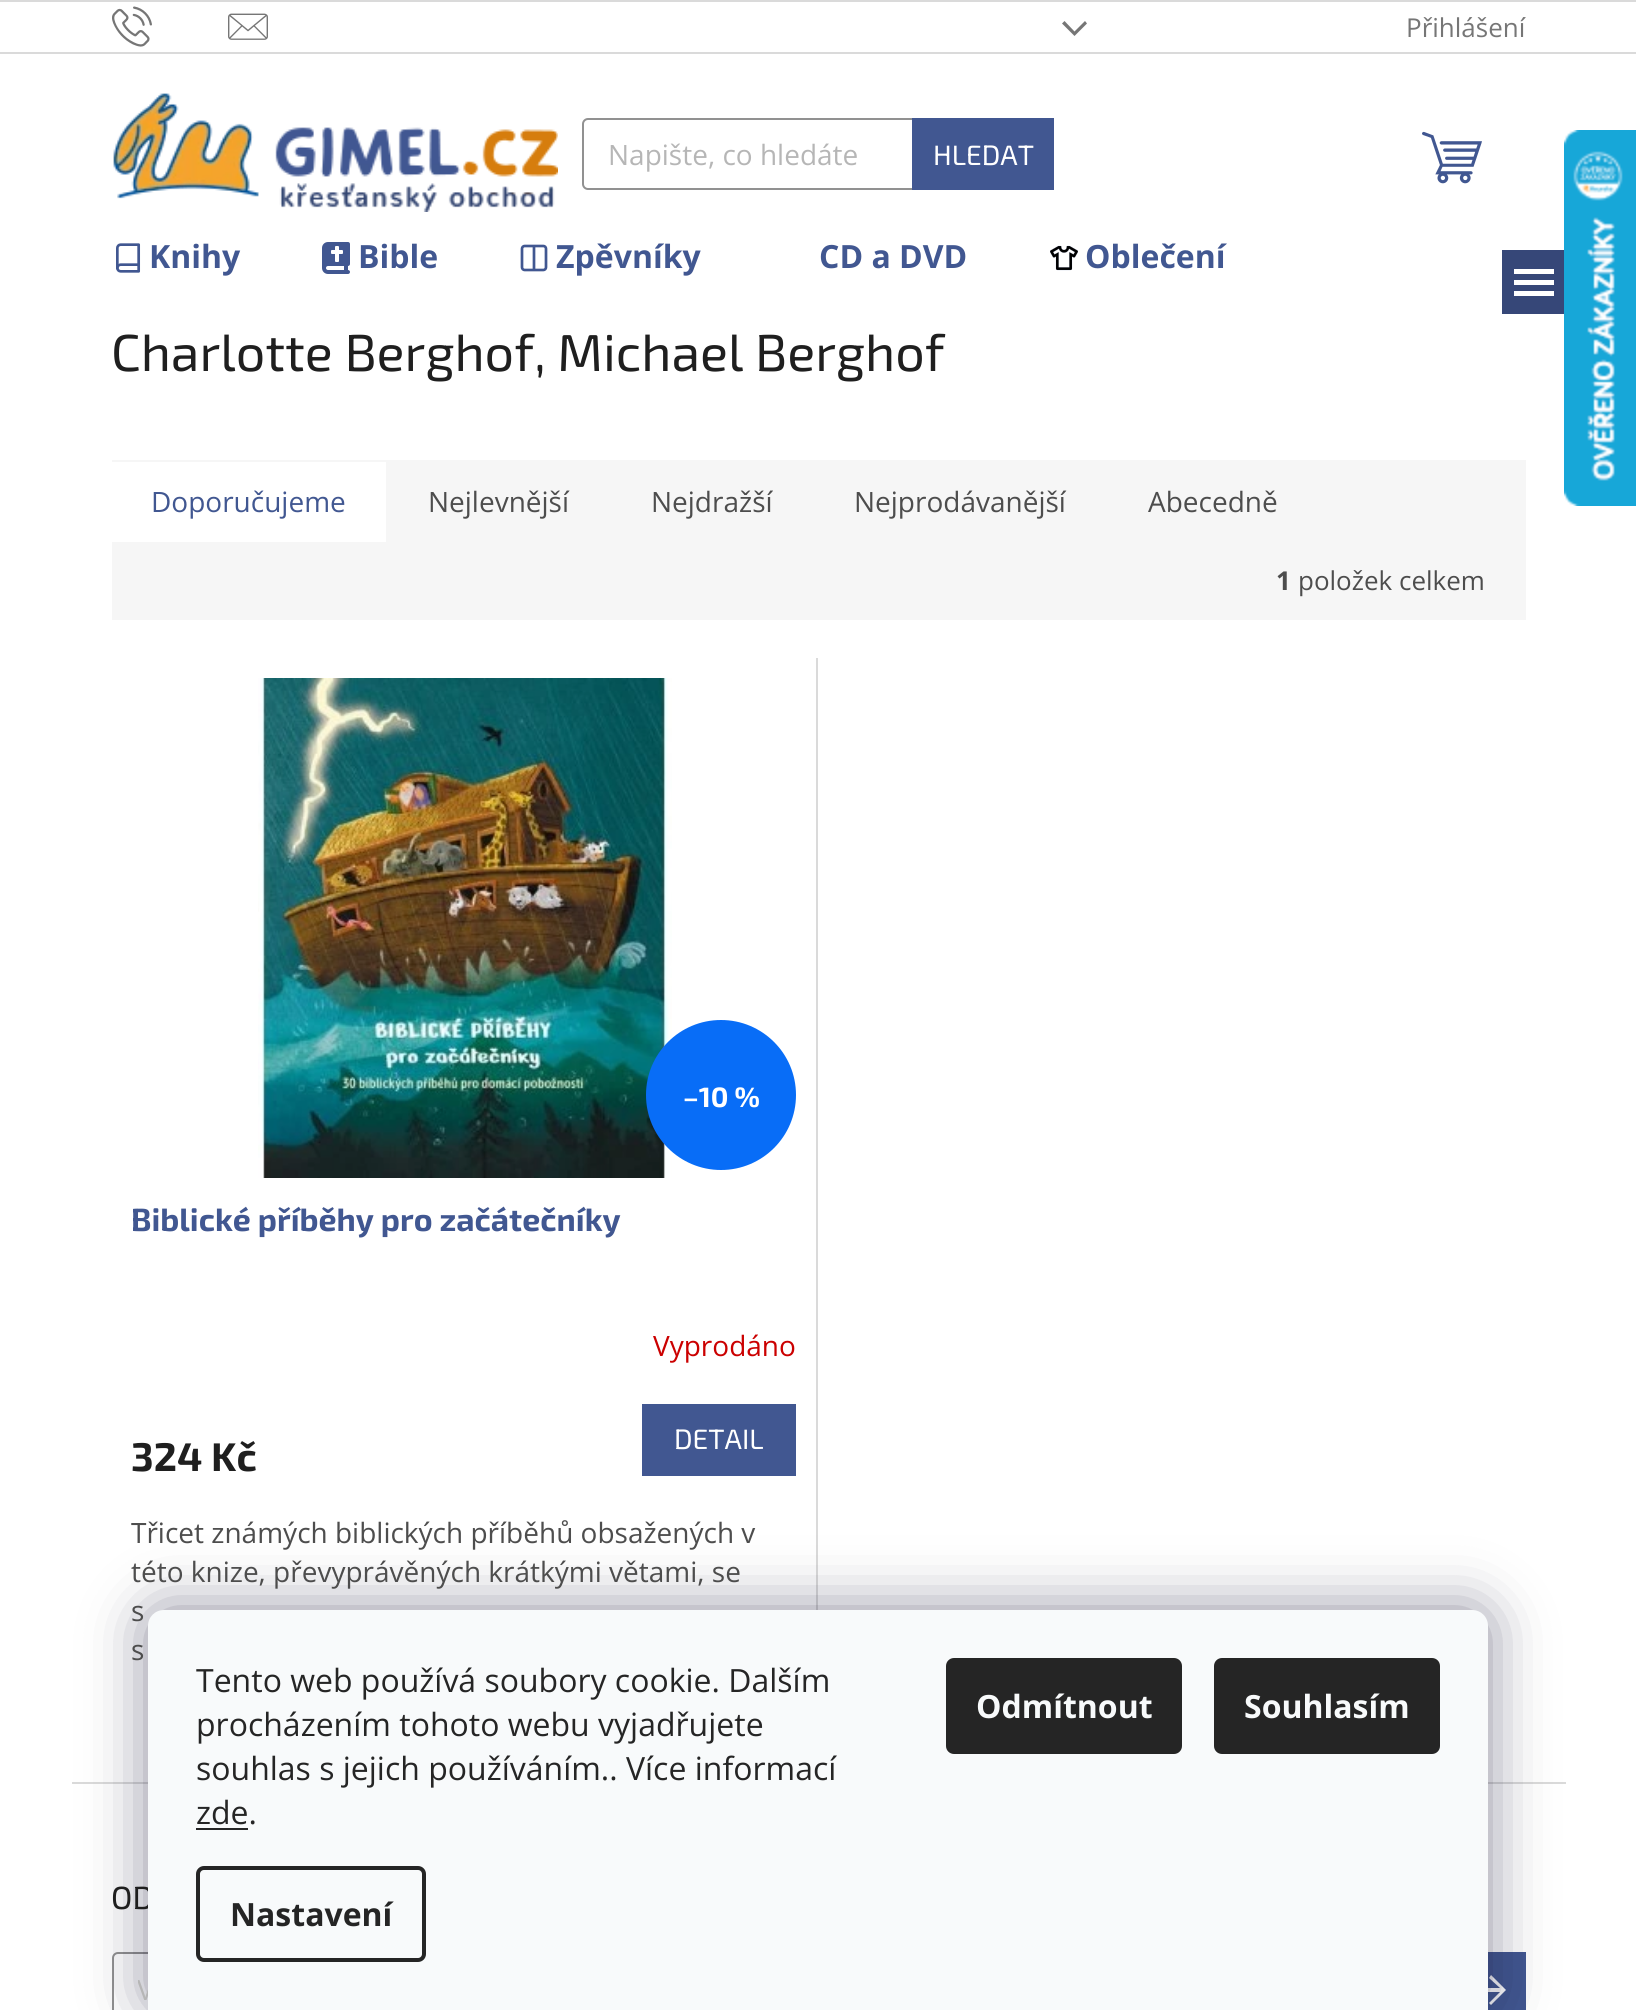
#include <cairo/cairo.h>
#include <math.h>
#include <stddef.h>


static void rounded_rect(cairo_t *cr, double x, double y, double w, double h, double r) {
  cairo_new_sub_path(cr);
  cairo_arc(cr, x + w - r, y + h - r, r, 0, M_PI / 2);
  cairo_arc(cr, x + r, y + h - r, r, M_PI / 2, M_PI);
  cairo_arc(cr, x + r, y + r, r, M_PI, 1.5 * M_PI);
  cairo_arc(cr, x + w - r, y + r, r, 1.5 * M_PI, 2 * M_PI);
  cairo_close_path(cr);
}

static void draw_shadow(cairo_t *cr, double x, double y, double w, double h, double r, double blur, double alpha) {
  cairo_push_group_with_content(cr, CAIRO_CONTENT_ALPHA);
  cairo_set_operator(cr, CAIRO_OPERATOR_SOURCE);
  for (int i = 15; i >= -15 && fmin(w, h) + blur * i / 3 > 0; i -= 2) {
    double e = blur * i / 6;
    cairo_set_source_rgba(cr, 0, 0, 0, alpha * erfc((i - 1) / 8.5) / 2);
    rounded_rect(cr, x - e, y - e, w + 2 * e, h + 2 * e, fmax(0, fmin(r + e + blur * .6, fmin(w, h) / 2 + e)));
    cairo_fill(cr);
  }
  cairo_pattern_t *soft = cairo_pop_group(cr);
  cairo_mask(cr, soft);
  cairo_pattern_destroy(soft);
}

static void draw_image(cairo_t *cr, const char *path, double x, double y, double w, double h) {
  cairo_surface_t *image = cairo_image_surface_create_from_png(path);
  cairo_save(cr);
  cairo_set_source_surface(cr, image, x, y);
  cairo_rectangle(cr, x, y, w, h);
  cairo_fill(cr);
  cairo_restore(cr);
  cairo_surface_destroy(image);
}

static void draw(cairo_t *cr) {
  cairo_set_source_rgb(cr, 1, 1, 1);
  cairo_paint(cr);
  cairo_set_source_rgb(cr, 218 / 255.0, 218 / 255.0, 218 / 255.0);
  cairo_rectangle(cr, 0, 0, 1636, 2);
  cairo_fill(cr);
  cairo_rectangle(cr, 0, 52, 1636, 2);
  cairo_fill(cr);
  draw_image(cr, "images/1.png", 112, 6, 40, 41);
  draw_image(cr, "images/2.png", 228, 13, 40, 27);
  cairo_set_source_rgb(cr, 118 / 255.0, 118 / 255.0, 118 / 255.0);
  cairo_new_path(cr);
  cairo_move_to(cr, 1062, 23.5);
  cairo_line_to(cr, 1064.5, 21);
  cairo_line_to(cr, 1074.5, 31.5);
  cairo_line_to(cr, 1085, 21);
  cairo_line_to(cr, 1087, 23.5);
  cairo_line_to(cr, 1074.5, 36);
  cairo_close_path(cr);
  cairo_fill(cr);
  draw_image(cr, "images/3.png", 113, 93, 445, 119);
  rounded_rect(cr, 583, 119, 470, 70, 5);
  cairo_set_source_rgb(cr, 145 / 255.0, 145 / 255.0, 145 / 255.0);
  cairo_stroke(cr);
  cairo_set_source_rgb(cr, 65 / 255.0, 87 / 255.0, 145 / 255.0);
  cairo_rectangle(cr, 912, 118, 142, 72);
  cairo_fill(cr);
  draw_image(cr, "images/4.png", 1422, 131, 60, 53);
  draw_image(cr, "images/5.png", 116, 243, 25, 30);
  draw_image(cr, "images/6.png", 322, 242, 28, 32);
  draw_image(cr, "images/7.png", 520, 244, 28, 28);
  draw_image(cr, "images/8.png", 1050, 245, 28, 26);
  cairo_set_source_rgb(cr, 54 / 255.0, 71 / 255.0, 120 / 255.0);
  cairo_rectangle(cr, 1502, 250, 62, 64);
  cairo_fill(cr);
  cairo_set_source_rgb(cr, 1, 1, 1);
  cairo_new_path(cr);
  cairo_move_to(cr, 1514, 296);
  cairo_line_to(cr, 1554, 296);
  cairo_line_to(cr, 1554, 291);
  cairo_line_to(cr, 1514, 291);
  cairo_close_path(cr);
  cairo_move_to(cr, 1514, 285);
  cairo_line_to(cr, 1554, 285);
  cairo_line_to(cr, 1554, 280);
  cairo_line_to(cr, 1514, 280);
  cairo_close_path(cr);
  cairo_move_to(cr, 1514, 269);
  cairo_line_to(cr, 1514, 274);
  cairo_line_to(cr, 1554, 274);
  cairo_line_to(cr, 1554, 269);
  cairo_close_path(cr);
  cairo_fill(cr);
  cairo_set_source_rgb(cr, 246 / 255.0, 246 / 255.0, 246 / 255.0);
  cairo_rectangle(cr, 112, 460, 1414, 160);
  cairo_fill(cr);
  cairo_set_source_rgb(cr, 1, 1, 1);
  cairo_rectangle(cr, 112, 462, 274, 80);
  cairo_fill(cr);
  cairo_set_source_rgb(cr, 218 / 255.0, 218 / 255.0, 218 / 255.0);
  cairo_rectangle(cr, 816, 658, 2, 952);
  cairo_fill(cr);
  draw_image(cr, "images/9.png", 258, 678, 414, 500);
  cairo_set_source_rgb(cr, 8 / 255.0, 109 / 255.0, 247 / 255.0);
  cairo_arc(cr, 721, 1095, 75, 0, 2 * M_PI);
  cairo_fill(cr);
  cairo_set_source_rgb(cr, 65 / 255.0, 87 / 255.0, 145 / 255.0);
  cairo_rectangle(cr, 642, 1404, 154, 72);
  cairo_fill(cr);
  cairo_set_source_rgb(cr, 218 / 255.0, 218 / 255.0, 218 / 255.0);
  cairo_rectangle(cr, 72, 1782, 1494, 2);
  cairo_fill(cr);
  rounded_rect(cr, 113, 1953, 1412, 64, 5);
  cairo_set_source_rgb(cr, 145 / 255.0, 145 / 255.0, 145 / 255.0);
  cairo_stroke(cr);
  cairo_set_source_rgb(cr, 65 / 255.0, 87 / 255.0, 145 / 255.0);
  cairo_rectangle(cr, 1488, 1952, 38, 58);
  cairo_fill(cr);
  cairo_set_source_rgb(cr, 1, 1, 1);
  cairo_new_path(cr);
  cairo_move_to(cr, 1491, 1975);
  cairo_line_to(cr, 1506, 1990);
  cairo_line_to(cr, 1491, 2005);
  cairo_line_to(cr, 1489, 2003);
  cairo_line_to(cr, 1500, 1992);
  cairo_line_to(cr, 1456, 1992);
  cairo_line_to(cr, 1456, 1988);
  cairo_line_to(cr, 1500, 1988);
  cairo_line_to(cr, 1489, 1978);
  cairo_close_path(cr);
  cairo_fill(cr);
  draw_image(cr, "images/10.png", 1564, 130, 72, 376);
  cairo_set_source_rgb(cr, 27 / 255.0, 25 / 255.0, 57 / 255.0);
  draw_shadow(cr, 148, 1610, 1340, 400, 16, 30, 0.5);
  cairo_select_font_face(cr, "Open Sans", CAIRO_FONT_SLANT_NORMAL, CAIRO_FONT_WEIGHT_NORMAL);
  cairo_set_font_size(cr, 26);
  cairo_set_source_rgb(cr, 118 / 255.0, 118 / 255.0, 118 / 255.0);
  cairo_move_to(cr, 1406, 37);
  cairo_show_text(cr, "Přihlášení");
  cairo_set_font_size(cr, 28);
  cairo_set_source_rgb(cr, 182 / 255.0, 182 / 255.0, 182 / 255.0);
  cairo_move_to(cr, 608, 165);
  cairo_show_text(cr, "Napište, co hledáte");
  cairo_select_font_face(cr, "Exo 2", CAIRO_FONT_SLANT_NORMAL, CAIRO_FONT_WEIGHT_NORMAL);
  cairo_set_source_rgb(cr, 1, 1, 1);
  cairo_move_to(cr, 933, 165);
  cairo_show_text(cr, "HLEDAT");
  cairo_select_font_face(cr, "Open Sans", CAIRO_FONT_SLANT_NORMAL, CAIRO_FONT_WEIGHT_BOLD);
  cairo_set_font_size(cr, 32);
  cairo_set_source_rgb(cr, 65 / 255.0, 87 / 255.0, 145 / 255.0);
  cairo_move_to(cr, 149, 268);
  cairo_show_text(cr, "Knihy");
  cairo_move_to(cr, 358, 268);
  cairo_show_text(cr, "Bible");
  cairo_move_to(cr, 556, 268);
  cairo_show_text(cr, "Zpěvníky");
  cairo_move_to(cr, 819, 268);
  cairo_show_text(cr, "CD a DVD");
  cairo_move_to(cr, 1085, 268);
  cairo_show_text(cr, "Oblečení");
  cairo_select_font_face(cr, "Exo 2", CAIRO_FONT_SLANT_NORMAL, CAIRO_FONT_WEIGHT_NORMAL);
  cairo_set_font_size(cr, 52);
  cairo_set_source_rgb(cr, 31 / 255.0, 31 / 255.0, 31 / 255.0);
  cairo_move_to(cr, 111, 371);
  cairo_show_text(cr, "Charlotte Berghof, Michael Berghof");
  cairo_select_font_face(cr, "Open Sans", CAIRO_FONT_SLANT_NORMAL, CAIRO_FONT_WEIGHT_NORMAL);
  cairo_set_font_size(cr, 28);
  cairo_set_source_rgb(cr, 65 / 255.0, 87 / 255.0, 145 / 255.0);
  cairo_move_to(cr, 151, 512);
  cairo_show_text(cr, "Doporučujeme");
  cairo_set_source_rgb(cr, 77 / 255.0, 77 / 255.0, 77 / 255.0);
  cairo_move_to(cr, 428, 512);
  cairo_show_text(cr, "Nejlevnější");
  cairo_move_to(cr, 651, 512);
  cairo_show_text(cr, "Nejdražší");
  cairo_move_to(cr, 854, 512);
  cairo_show_text(cr, "Nejprodávanější");
  cairo_move_to(cr, 1148, 512);
  cairo_show_text(cr, "Abecedně");
  cairo_select_font_face(cr, "Open Sans", CAIRO_FONT_SLANT_NORMAL, CAIRO_FONT_WEIGHT_BOLD);
  cairo_set_font_size(cr, 26);
  cairo_move_to(cr, 1276, 590);
  cairo_show_text(cr, "1");
  cairo_select_font_face(cr, "Open Sans", CAIRO_FONT_SLANT_NORMAL, CAIRO_FONT_WEIGHT_NORMAL);
  cairo_move_to(cr, 1298, 590);
  cairo_show_text(cr, "položek celkem");
  cairo_select_font_face(cr, "Exo 2", CAIRO_FONT_SLANT_NORMAL, CAIRO_FONT_WEIGHT_BOLD);
  cairo_set_font_size(cr, 28);
  cairo_set_source_rgb(cr, 1, 1, 1);
  cairo_move_to(cr, 683, 1107);
  cairo_show_text(cr, "–10 %");
  cairo_set_font_size(cr, 32);
  cairo_set_source_rgb(cr, 65 / 255.0, 87 / 255.0, 145 / 255.0);
  cairo_move_to(cr, 131, 1231);
  cairo_show_text(cr, "Biblické příběhy pro začátečníky");
  cairo_select_font_face(cr, "Open Sans", CAIRO_FONT_SLANT_NORMAL, CAIRO_FONT_WEIGHT_NORMAL);
  cairo_set_font_size(cr, 28);
  cairo_set_source_rgb(cr, 203 / 255.0, 0, 0);
  cairo_move_to(cr, 653, 1356);
  cairo_show_text(cr, "Vyprodáno");
  cairo_select_font_face(cr, "Exo 2", CAIRO_FONT_SLANT_NORMAL, CAIRO_FONT_WEIGHT_BOLD);
  cairo_set_font_size(cr, 40);
  cairo_set_source_rgb(cr, 31 / 255.0, 31 / 255.0, 31 / 255.0);
  cairo_move_to(cr, 131, 1471);
  cairo_show_text(cr, "324 Kč");
  cairo_select_font_face(cr, "Exo 2", CAIRO_FONT_SLANT_NORMAL, CAIRO_FONT_WEIGHT_NORMAL);
  cairo_set_font_size(cr, 28);
  cairo_set_source_rgb(cr, 1, 1, 1);
  cairo_move_to(cr, 674, 1449);
  cairo_show_text(cr, "DETAIL");
  cairo_select_font_face(cr, "Open Sans", CAIRO_FONT_SLANT_NORMAL, CAIRO_FONT_WEIGHT_NORMAL);
  cairo_set_source_rgb(cr, 77 / 255.0, 77 / 255.0, 77 / 255.0);
  cairo_move_to(cr, 131, 1543);
  cairo_show_text(cr, "Třicet známých biblických příběhů obsažených v");
  cairo_move_to(cr, 131, 1582);
  cairo_show_text(cr, "této knize, převyprávěných krátkými větami, se");
  cairo_move_to(cr, 131, 1621);
  cairo_show_text(cr, "s");
  cairo_move_to(cr, 131, 1660);
  cairo_show_text(cr, "s");
  cairo_select_font_face(cr, "Exo 2", CAIRO_FONT_SLANT_NORMAL, CAIRO_FONT_WEIGHT_NORMAL);
  cairo_set_font_size(cr, 32);
  cairo_set_source_rgb(cr, 31 / 255.0, 31 / 255.0, 31 / 255.0);
  cairo_move_to(cr, 111, 1909);
  cairo_show_text(cr, "OD");
  cairo_save(cr);
  cairo_rectangle(cr, 138, 1970, 1246, 38);
  cairo_clip(cr);
  cairo_select_font_face(cr, "Open Sans", CAIRO_FONT_SLANT_NORMAL, CAIRO_FONT_WEIGHT_NORMAL);
  cairo_set_font_size(cr, 28);
  cairo_set_source_rgb(cr, 182 / 255.0, 182 / 255.0, 182 / 255.0);
  cairo_move_to(cr, 137, 2000);
  cairo_show_text(cr, "V");
  cairo_restore(cr);
  cairo_set_source_rgb(cr, 248 / 255.0, 250 / 255.0, 251 / 255.0);
  cairo_new_path(cr);
  cairo_move_to(cr, 164, 1610);
  cairo_line_to(cr, 1472, 1610);
  cairo_curve_to(cr, 1481, 1610, 1488, 1617, 1488, 1626);
  cairo_line_to(cr, 1488, 2010);
  cairo_line_to(cr, 148, 2010);
  cairo_line_to(cr, 148, 1626);
  cairo_curve_to(cr, 148, 1617, 155, 1610, 164, 1610);
  cairo_close_path(cr);
  cairo_fill(cr);
  cairo_select_font_face(cr, "Open Sans", CAIRO_FONT_SLANT_NORMAL, CAIRO_FONT_WEIGHT_NORMAL);
  cairo_set_source_rgb(cr, 37 / 255.0, 37 / 255.0, 37 / 255.0);
  cairo_move_to(cr, 196, 1692);
  cairo_show_text(cr, "Tento web používá soubory cookie. Dalším");
  cairo_move_to(cr, 196, 1736);
  cairo_show_text(cr, "procházením tohoto webu vyjadřujete");
  cairo_move_to(cr, 196, 1780);
  cairo_show_text(cr, "souhlas s jejich používáním.. Více informací");
  cairo_move_to(cr, 196, 1824);
  cairo_show_text(cr, "zde.");
  cairo_rectangle(cr, 196, 1828, 52, 2);
  cairo_fill(cr);
  rounded_rect(cr, 198, 1868, 226, 92, 6);
  cairo_set_line_width(cr, 4);
  cairo_stroke(cr);
  cairo_select_font_face(cr, "Open Sans", CAIRO_FONT_SLANT_NORMAL, CAIRO_FONT_WEIGHT_BOLD);
  cairo_move_to(cr, 230, 1926);
  cairo_show_text(cr, "Nastavení");
  rounded_rect(cr, 946, 1658, 236, 96, 8);
  cairo_fill(cr);
  cairo_set_source_rgb(cr, 248 / 255.0, 250 / 255.0, 251 / 255.0);
  cairo_move_to(cr, 976, 1718);
  cairo_show_text(cr, "Odmítnout");
  cairo_set_source_rgb(cr, 37 / 255.0, 37 / 255.0, 37 / 255.0);
  rounded_rect(cr, 1214, 1658, 226, 96, 8);
  cairo_fill(cr);
  cairo_set_source_rgb(cr, 248 / 255.0, 250 / 255.0, 251 / 255.0);
  cairo_move_to(cr, 1244, 1718);
  cairo_show_text(cr, "Souhlasím");
}

int main(void) {
  cairo_surface_t *surface = cairo_image_surface_create(CAIRO_FORMAT_RGB24, 1636, 2010);
  cairo_t *cr = cairo_create(surface);
  cairo_font_options_t *options = cairo_font_options_create();
  cairo_font_options_set_hint_metrics(options, CAIRO_HINT_METRICS_OFF);
  cairo_font_options_set_hint_style(options, CAIRO_HINT_STYLE_NONE);
  cairo_set_font_options(cr, options);
  cairo_set_miter_limit(cr, 4);
  draw(cr);
  cairo_surface_write_to_png(surface, "out.png");
  cairo_font_options_destroy(options);
  cairo_destroy(cr);
  cairo_surface_destroy(surface);
  return 0;
}
